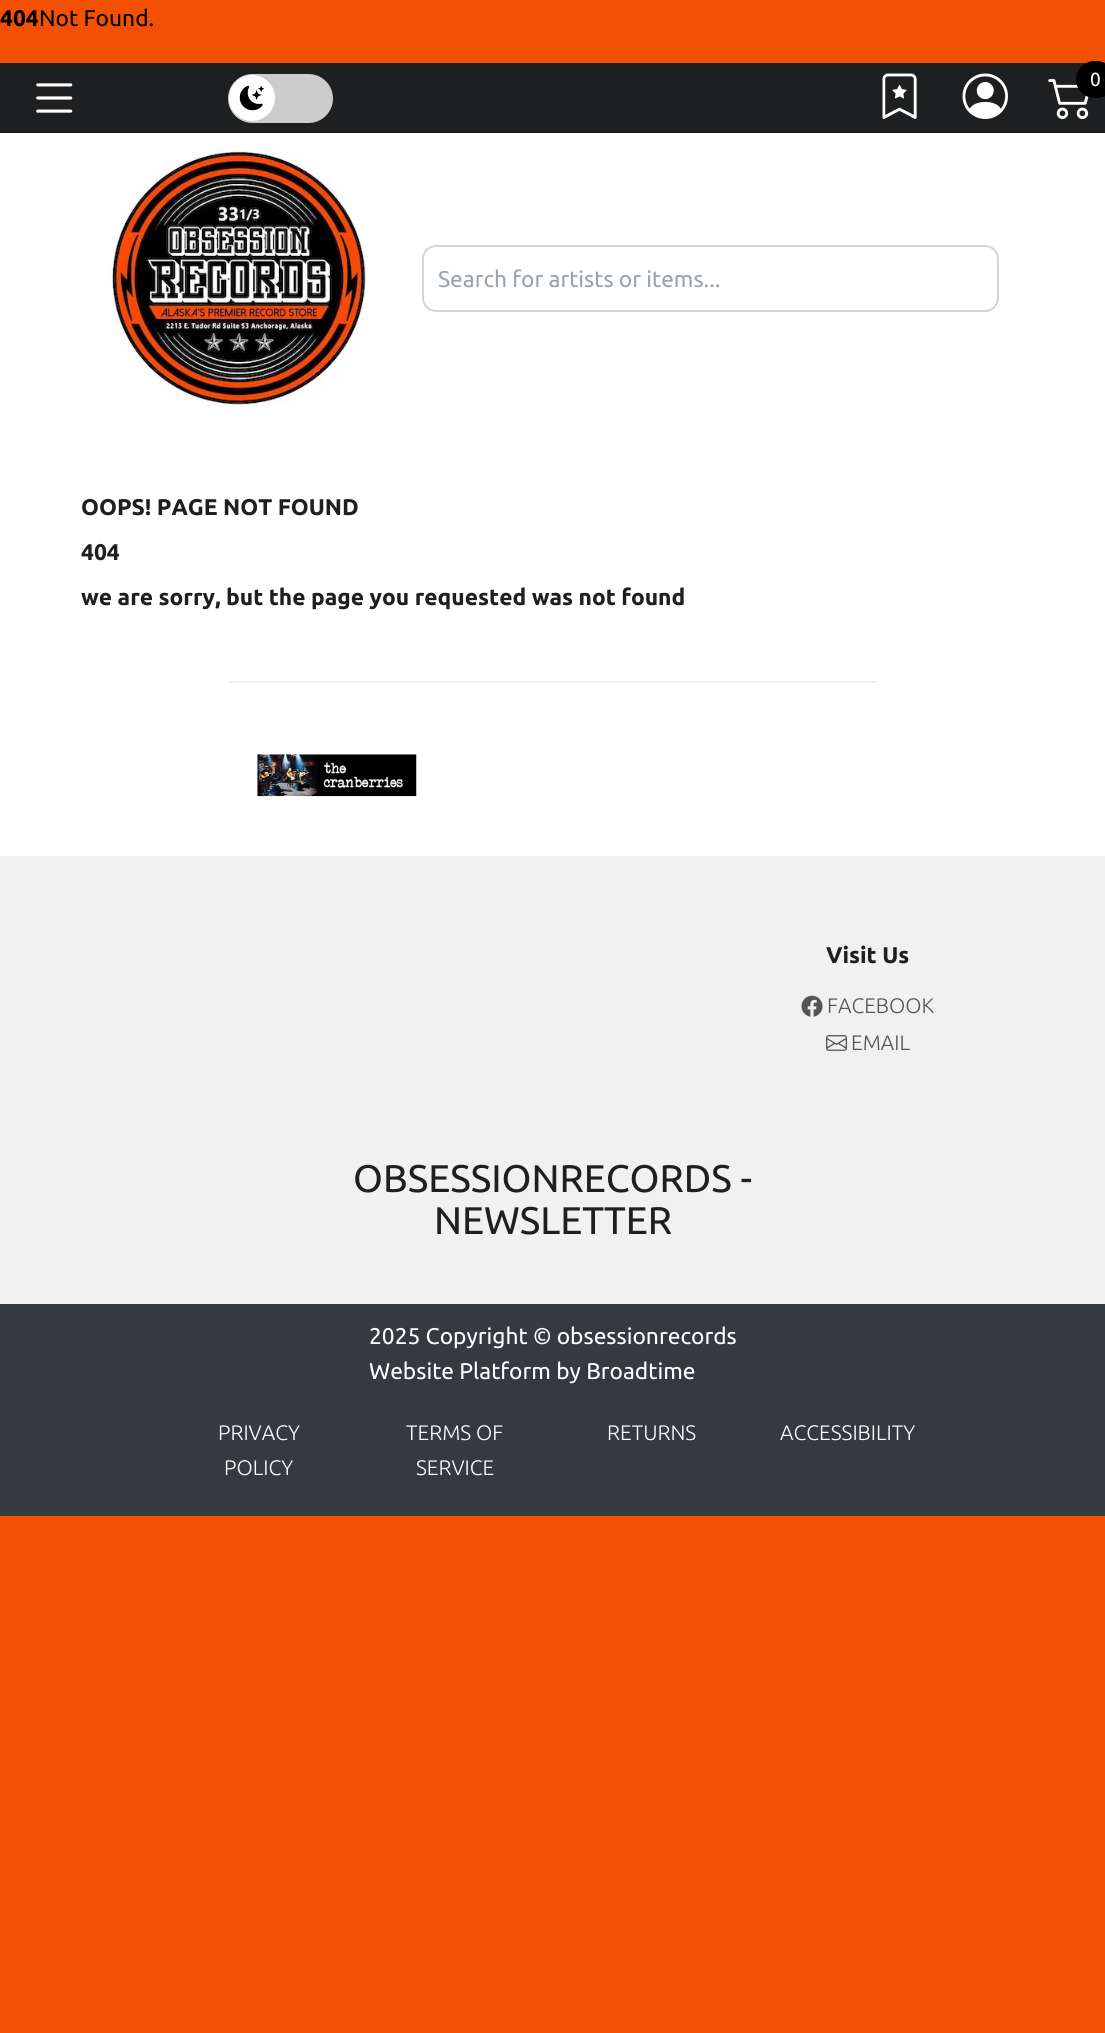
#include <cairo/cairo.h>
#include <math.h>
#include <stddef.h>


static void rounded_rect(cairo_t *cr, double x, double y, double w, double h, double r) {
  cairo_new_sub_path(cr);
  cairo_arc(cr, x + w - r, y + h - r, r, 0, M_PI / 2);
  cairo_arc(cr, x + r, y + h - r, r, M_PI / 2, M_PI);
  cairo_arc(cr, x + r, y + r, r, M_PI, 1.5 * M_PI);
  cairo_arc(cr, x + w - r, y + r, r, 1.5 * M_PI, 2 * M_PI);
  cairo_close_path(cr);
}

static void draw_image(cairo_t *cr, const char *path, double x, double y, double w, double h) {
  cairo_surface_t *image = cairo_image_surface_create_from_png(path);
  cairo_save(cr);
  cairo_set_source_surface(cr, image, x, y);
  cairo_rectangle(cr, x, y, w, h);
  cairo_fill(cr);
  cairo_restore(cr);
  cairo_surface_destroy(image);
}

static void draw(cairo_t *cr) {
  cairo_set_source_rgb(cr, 243 / 255.0, 80 / 255.0, 3 / 255.0);
  cairo_paint(cr);
  cairo_set_source_rgb(cr, 1, 1, 1);
  cairo_rectangle(cr, 0, 133, 1105, 723);
  cairo_fill(cr);
  cairo_set_source_rgb(cr, 29 / 255.0, 31 / 255.0, 32 / 255.0);
  cairo_rectangle(cr, 0, 63, 1105, 70);
  cairo_fill(cr);
  draw_image(cr, "images/1.png", 36, 83, 37, 30);
  cairo_set_source_rgb(cr, 204 / 255.0, 204 / 255.0, 204 / 255.0);
  rounded_rect(cr, 228, 74, 105, 49, 24.5);
  cairo_fill(cr);
  cairo_set_source_rgb(cr, 1, 1, 1);
  cairo_arc(cr, 252, 98, 23, 0, 2 * M_PI);
  cairo_fill(cr);
  draw_image(cr, "images/2.png", 239, 85, 26, 26);
  draw_image(cr, "images/3.png", 882, 73, 35, 46);
  draw_image(cr, "images/4.png", 962, 73, 46, 46);
  draw_image(cr, "images/5.png", 1048, 79, 41, 40);
  cairo_set_source_rgb(cr, 0, 0, 0);
  rounded_rect(cr, 1076, 61, 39, 37, 18.5);
  cairo_fill(cr);
  draw_image(cr, "images/6.png", 110, 150, 256, 256);
  rounded_rect(cr, 423, 246, 575, 65, 13);
  cairo_set_source_rgb(cr, 209 / 255.0, 213 / 255.0, 219 / 255.0);
  cairo_stroke(cr);
  cairo_set_source_rgb(cr, 241 / 255.0, 241 / 255.0, 241 / 255.0);
  cairo_rectangle(cr, 229, 681, 648, 2);
  cairo_fill(cr);
  draw_image(cr, "images/7.png", 257, 754, 160, 43);
  cairo_rectangle(cr, 0, 856, 1105, 448);
  cairo_fill(cr);
  draw_image(cr, "images/8.png", 801, 995, 22, 22);
  draw_image(cr, "images/9.png", 826, 1035, 21, 16);
  cairo_set_source_rgb(cr, 52 / 255.0, 58 / 255.0, 64 / 255.0);
  cairo_rectangle(cr, 0, 1304, 1105, 212);
  cairo_fill(cr);
  cairo_select_font_face(cr, "Ubuntu", CAIRO_FONT_SLANT_NORMAL, CAIRO_FONT_WEIGHT_BOLD);
  cairo_set_font_size(cr, 22.75);
  cairo_set_source_rgb(cr, 0, 0, 0);
  cairo_move_to(cr, 0, 26);
  cairo_show_text(cr, "404");
  cairo_select_font_face(cr, "Ubuntu", CAIRO_FONT_SLANT_NORMAL, CAIRO_FONT_WEIGHT_NORMAL);
  cairo_move_to(cr, 39, 26);
  cairo_show_text(cr, "Not Found.");
  cairo_set_font_size(cr, 19);
  cairo_set_source_rgb(cr, 1, 1, 1);
  cairo_move_to(cr, 1090, 86);
  cairo_show_text(cr, "0");
  cairo_set_font_size(cr, 22.75);
  cairo_set_source_rgb(cr, 156 / 255.0, 163 / 255.0, 175 / 255.0);
  cairo_move_to(cr, 438, 287);
  cairo_show_text(cr, "Search for artists or items...");
  cairo_select_font_face(cr, "Ubuntu", CAIRO_FONT_SLANT_NORMAL, CAIRO_FONT_WEIGHT_BOLD);
  cairo_set_source_rgb(cr, 29 / 255.0, 31 / 255.0, 32 / 255.0);
  cairo_move_to(cr, 81, 515);
  cairo_show_text(cr, "OOPS! PAGE NOT FOUND");
  cairo_move_to(cr, 81, 560);
  cairo_show_text(cr, "404");
  cairo_move_to(cr, 81, 605);
  cairo_show_text(cr, "we are sorry, but the page you requested was not found");
  cairo_move_to(cr, 826, 963);
  cairo_show_text(cr, "Visit Us");
  cairo_select_font_face(cr, "Ubuntu Light", CAIRO_FONT_SLANT_NORMAL, CAIRO_FONT_WEIGHT_NORMAL);
  cairo_set_font_size(cr, 21);
  cairo_set_source_rgb(cr, 85 / 255.0, 85 / 255.0, 85 / 255.0);
  cairo_move_to(cr, 827, 1013);
  cairo_show_text(cr, "FACEBOOK");
  cairo_move_to(cr, 851, 1050);
  cairo_show_text(cr, "EMAIL");
  cairo_select_font_face(cr, "Ubuntu", CAIRO_FONT_SLANT_NORMAL, CAIRO_FONT_WEIGHT_NORMAL);
  cairo_set_font_size(cr, 38.5);
  cairo_set_source_rgb(cr, 29 / 255.0, 31 / 255.0, 32 / 255.0);
  cairo_move_to(cr, 353, 1192);
  cairo_show_text(cr, "OBSESSIONRECORDS -");
  cairo_move_to(cr, 434, 1234);
  cairo_show_text(cr, "NEWSLETTER");
  cairo_set_font_size(cr, 22.75);
  cairo_set_source_rgb(cr, 1, 1, 1);
  cairo_move_to(cr, 369, 1344);
  cairo_show_text(cr, "2025 Copyright © obsessionrecords");
  cairo_move_to(cr, 369, 1379);
  cairo_show_text(cr, "Website Platform by Broadtime");
  cairo_select_font_face(cr, "Ubuntu Light", CAIRO_FONT_SLANT_NORMAL, CAIRO_FONT_WEIGHT_NORMAL);
  cairo_set_font_size(cr, 21);
  cairo_move_to(cr, 218, 1440);
  cairo_show_text(cr, "PRIVACY");
  cairo_move_to(cr, 224, 1475);
  cairo_show_text(cr, "POLICY");
  cairo_move_to(cr, 406, 1440);
  cairo_show_text(cr, "TERMS OF");
  cairo_move_to(cr, 416, 1475);
  cairo_show_text(cr, "SERVICE");
  cairo_move_to(cr, 607, 1440);
  cairo_show_text(cr, "RETURNS");
  cairo_move_to(cr, 780, 1440);
  cairo_show_text(cr, "ACCESSIBILITY");
}

int main(void) {
  cairo_surface_t *surface = cairo_image_surface_create(CAIRO_FORMAT_RGB24, 1105, 2033);
  cairo_t *cr = cairo_create(surface);
  cairo_font_options_t *options = cairo_font_options_create();
  cairo_font_options_set_hint_metrics(options, CAIRO_HINT_METRICS_OFF);
  cairo_font_options_set_hint_style(options, CAIRO_HINT_STYLE_NONE);
  cairo_set_font_options(cr, options);
  cairo_set_miter_limit(cr, 4);
  draw(cr);
  cairo_surface_write_to_png(surface, "out.png");
  cairo_font_options_destroy(options);
  cairo_destroy(cr);
  cairo_surface_destroy(surface);
  return 0;
}
